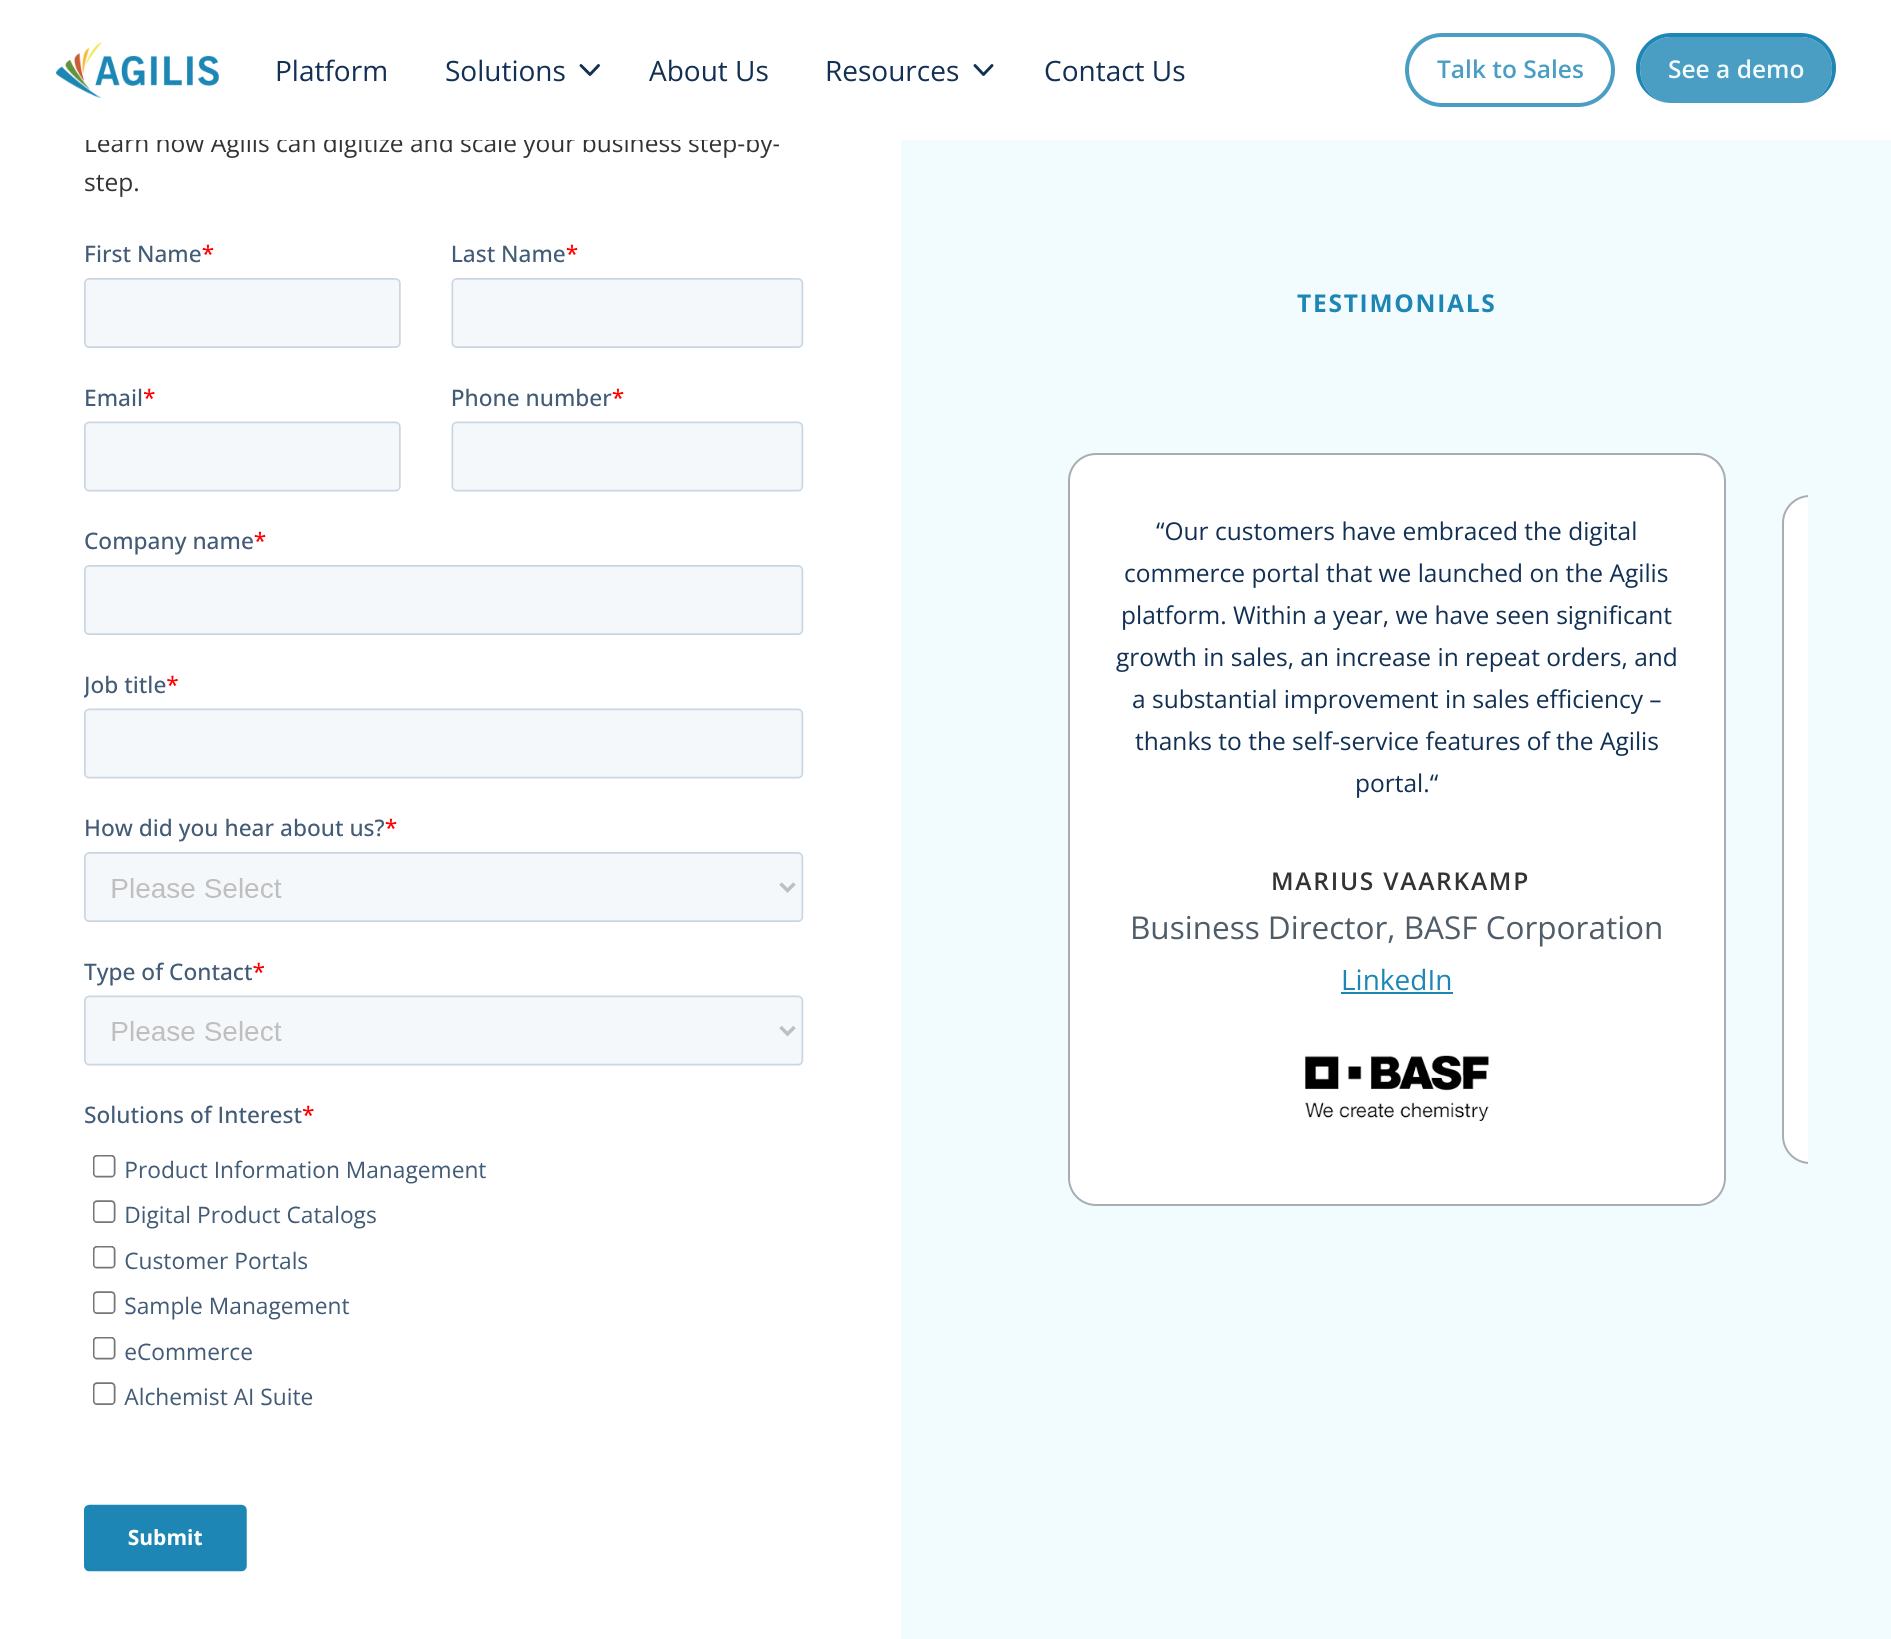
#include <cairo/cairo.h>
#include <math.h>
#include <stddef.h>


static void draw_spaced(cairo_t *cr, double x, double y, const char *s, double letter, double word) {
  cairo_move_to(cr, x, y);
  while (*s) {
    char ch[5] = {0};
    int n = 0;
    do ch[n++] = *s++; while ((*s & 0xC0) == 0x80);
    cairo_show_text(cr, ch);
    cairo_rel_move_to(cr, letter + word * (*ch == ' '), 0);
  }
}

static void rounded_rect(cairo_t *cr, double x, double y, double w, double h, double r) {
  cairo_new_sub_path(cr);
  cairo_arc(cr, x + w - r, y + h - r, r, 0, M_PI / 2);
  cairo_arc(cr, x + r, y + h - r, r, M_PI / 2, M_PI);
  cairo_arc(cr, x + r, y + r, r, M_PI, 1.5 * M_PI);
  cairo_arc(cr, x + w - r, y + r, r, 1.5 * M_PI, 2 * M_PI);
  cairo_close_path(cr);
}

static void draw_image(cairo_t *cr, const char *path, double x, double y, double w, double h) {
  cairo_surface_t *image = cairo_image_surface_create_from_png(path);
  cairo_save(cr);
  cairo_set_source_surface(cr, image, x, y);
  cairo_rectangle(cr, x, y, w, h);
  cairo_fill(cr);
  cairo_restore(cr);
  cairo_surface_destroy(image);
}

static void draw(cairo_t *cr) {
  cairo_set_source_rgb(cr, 1, 1, 1);
  cairo_paint(cr);
  draw_image(cr, "images/1.png", 56, 42, 163, 56);
  cairo_new_path(cr);
  cairo_move_to(cr, 581, 65.5);
  cairo_line_to(cr, 590, 74.5);
  cairo_line_to(cr, 598.5, 65.5);
  cairo_set_source_rgb(cr, 18 / 255.0, 48 / 255.0, 83 / 255.0);
  cairo_set_line_width(cr, 2.9);
  cairo_set_line_cap(cr, CAIRO_LINE_CAP_ROUND);
  cairo_set_line_join(cr, CAIRO_LINE_JOIN_ROUND);
  cairo_stroke(cr);
  cairo_new_path(cr);
  cairo_move_to(cr, 975, 65.5);
  cairo_line_to(cr, 983.5, 74.5);
  cairo_line_to(cr, 992, 65.5);
  cairo_stroke(cr);
  rounded_rect(cr, 1407, 35, 206, 70, 35);
  cairo_set_source_rgb(cr, 74 / 255.0, 158 / 255.0, 195 / 255.0);
  cairo_set_line_width(cr, 4);
  cairo_set_line_cap(cr, CAIRO_LINE_CAP_BUTT);
  cairo_set_line_join(cr, CAIRO_LINE_JOIN_MITER);
  cairo_stroke(cr);
  cairo_new_path(cr);
  cairo_move_to(cr, 1671, 37);
  cairo_line_to(cr, 1801, 37);
  cairo_curve_to(cr, 1818, 37, 1832, 51, 1832, 68);
  cairo_curve_to(cr, 1832, 88, 1818, 103, 1801, 103);
  cairo_line_to(cr, 1671, 103);
  cairo_curve_to(cr, 1654, 103, 1640, 88, 1640, 68);
  cairo_curve_to(cr, 1640, 51, 1654, 37, 1671, 37);
  cairo_close_path(cr);
  cairo_fill(cr);
  cairo_set_source_rgb(cr, 29 / 255.0, 134 / 255.0, 180 / 255.0);
  cairo_set_fill_rule(cr, CAIRO_FILL_RULE_EVEN_ODD);
  cairo_new_path(cr);
  cairo_move_to(cr, 1671, 33);
  cairo_line_to(cr, 1801, 33);
  cairo_curve_to(cr, 1820, 33, 1836, 49, 1836, 68);
  cairo_curve_to(cr, 1836, 88, 1820, 103, 1801, 103);
  cairo_line_to(cr, 1671, 103);
  cairo_curve_to(cr, 1652, 103, 1636, 88, 1636, 68);
  cairo_curve_to(cr, 1636, 49, 1652, 33, 1671, 33);
  cairo_close_path(cr);
  cairo_move_to(cr, 1671, 37);
  cairo_line_to(cr, 1801, 37);
  cairo_curve_to(cr, 1818, 37, 1832, 51, 1832, 68);
  cairo_curve_to(cr, 1832, 88, 1818, 103, 1801, 103);
  cairo_line_to(cr, 1671, 103);
  cairo_curve_to(cr, 1654, 103, 1640, 88, 1640, 68);
  cairo_curve_to(cr, 1640, 51, 1654, 37, 1671, 37);
  cairo_close_path(cr);
  cairo_fill(cr);
  draw_image(cr, "images/2.png", 84, 244, 720, 1328);
  cairo_set_source_rgb(cr, 242 / 255.0, 251 / 255.0, 253 / 255.0);
  cairo_rectangle(cr, 901, 140, 990, 1499);
  cairo_fill(cr);
  cairo_set_source_rgb(cr, 1, 1, 1);
  rounded_rect(cr, 1068, 453, 658, 753, 28);
  cairo_fill(cr);
  rounded_rect(cr, 1069, 454, 656, 751, 27);
  cairo_set_source_rgba(cr, 80 / 255.0, 93 / 255.0, 104 / 255.0, 0.5);
  cairo_set_line_width(cr, 2);
  cairo_stroke(cr);
  cairo_set_source_rgb(cr, 29 / 255.0, 134 / 255.0, 180 / 255.0);
  cairo_rectangle(cr, 1341, 992, 112, 2);
  cairo_fill(cr);
  draw_image(cr, "images/3.png", 1305, 1055, 184, 66);
  cairo_set_source_rgb(cr, 1, 1, 1);
  cairo_new_path(cr);
  cairo_move_to(cr, 1810, 495);
  cairo_line_to(cr, 1808, 495);
  cairo_line_to(cr, 1808, 1164);
  cairo_line_to(cr, 1810, 1164);
  cairo_curve_to(cr, 1794.5, 1164, 1782, 1151.5, 1782, 1136);
  cairo_line_to(cr, 1782, 523);
  cairo_curve_to(cr, 1782, 507.5, 1794.5, 495, 1810, 495);
  cairo_close_path(cr);
  cairo_fill(cr);
  cairo_save(cr);
  cairo_set_fill_rule(cr, CAIRO_FILL_RULE_WINDING);
  cairo_rectangle(cr, 985, 411, 823, 893);
  cairo_clip(cr);
  rounded_rect(cr, 1783, 496, 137, 667, 27);
  cairo_set_source_rgba(cr, 80 / 255.0, 93 / 255.0, 104 / 255.0, 0.5);
  cairo_stroke(cr);
  cairo_restore(cr);
  cairo_select_font_face(cr, "Open Sans", CAIRO_FONT_SLANT_NORMAL, CAIRO_FONT_WEIGHT_NORMAL);
  cairo_set_font_size(cr, 28);
  cairo_set_source_rgb(cr, 18 / 255.0, 48 / 255.0, 83 / 255.0);
  cairo_move_to(cr, 275, 81);
  cairo_show_text(cr, "Platform");
  cairo_move_to(cr, 445, 81);
  cairo_show_text(cr, "Solutions");
  cairo_move_to(cr, 649, 81);
  cairo_show_text(cr, "About Us");
  cairo_move_to(cr, 825, 81);
  cairo_show_text(cr, "Resources");
  cairo_move_to(cr, 1044, 81);
  cairo_show_text(cr, "Contact Us");
  cairo_select_font_face(cr, "Open Sans SemiBold", CAIRO_FONT_SLANT_NORMAL, CAIRO_FONT_WEIGHT_NORMAL);
  cairo_set_font_size(cr, 24.5);
  cairo_set_source_rgb(cr, 74 / 255.0, 158 / 255.0, 195 / 255.0);
  cairo_move_to(cr, 1437, 78);
  cairo_show_text(cr, "Talk to Sales");
  cairo_set_source_rgb(cr, 242 / 255.0, 251 / 255.0, 253 / 255.0);
  cairo_move_to(cr, 1668, 78);
  cairo_show_text(cr, "See a demo");
  cairo_select_font_face(cr, "Open Sans", CAIRO_FONT_SLANT_NORMAL, CAIRO_FONT_WEIGHT_NORMAL);
  cairo_set_source_rgb(cr, 51 / 255.0, 51 / 255.0, 51 / 255.0);
  cairo_move_to(cr, 84, 152);
  cairo_show_text(cr, "Learn how Agilis can digitize and scale your business step-by-");
  cairo_set_source_rgb(cr, 1, 1, 1);
  cairo_rectangle(cr, 86, 133, 687, 7);
  cairo_fill(cr);
  cairo_set_source_rgb(cr, 51 / 255.0, 51 / 255.0, 51 / 255.0);
  cairo_move_to(cr, 84, 191);
  cairo_show_text(cr, "step.");
  cairo_select_font_face(cr, "Open Sans", CAIRO_FONT_SLANT_NORMAL, CAIRO_FONT_WEIGHT_BOLD);
  cairo_set_source_rgb(cr, 29 / 255.0, 134 / 255.0, 180 / 255.0);
  draw_spaced(cr, 1297, 312, "TESTIMONIALS", 1.75, 0);
  cairo_select_font_face(cr, "Open Sans", CAIRO_FONT_SLANT_NORMAL, CAIRO_FONT_WEIGHT_NORMAL);
  cairo_set_source_rgb(cr, 18 / 255.0, 48 / 255.0, 83 / 255.0);
  cairo_move_to(cr, 1156, 540);
  cairo_show_text(cr, "“Our customers have embraced the digital");
  cairo_move_to(cr, 1124, 582);
  cairo_show_text(cr, "commerce portal that we launched on the Agilis");
  cairo_move_to(cr, 1121, 624);
  cairo_show_text(cr, "platform. Within a year, we have seen significant");
  cairo_move_to(cr, 1116, 666);
  cairo_show_text(cr, "growth in sales, an increase in repeat orders, and");
  cairo_move_to(cr, 1132, 708);
  cairo_show_text(cr, "a substantial improvement in sales efficiency –");
  cairo_move_to(cr, 1135, 750);
  cairo_show_text(cr, "thanks to the self-service features of the Agilis");
  cairo_move_to(cr, 1355, 792);
  cairo_show_text(cr, "portal.“");
  cairo_select_font_face(cr, "Open Sans SemiBold", CAIRO_FONT_SLANT_NORMAL, CAIRO_FONT_WEIGHT_NORMAL);
  cairo_set_source_rgb(cr, 51 / 255.0, 51 / 255.0, 51 / 255.0);
  draw_spaced(cr, 1271, 890, "MARIUS VAARKAMP", 1.75, 0);
  cairo_select_font_face(cr, "Open Sans", CAIRO_FONT_SLANT_NORMAL, CAIRO_FONT_WEIGHT_NORMAL);
  cairo_set_font_size(cr, 31.5);
  cairo_set_source_rgb(cr, 80 / 255.0, 93 / 255.0, 104 / 255.0);
  cairo_move_to(cr, 1130, 939);
  cairo_show_text(cr, "Business Director, BASF Corporation");
  cairo_set_font_size(cr, 28);
  cairo_set_source_rgb(cr, 29 / 255.0, 134 / 255.0, 180 / 255.0);
  cairo_move_to(cr, 1341, 990);
  cairo_show_text(cr, "LinkedIn");
}

int main(void) {
  cairo_surface_t *surface = cairo_image_surface_create(CAIRO_FORMAT_RGB24, 1891, 1639);
  cairo_t *cr = cairo_create(surface);
  cairo_font_options_t *options = cairo_font_options_create();
  cairo_font_options_set_hint_metrics(options, CAIRO_HINT_METRICS_OFF);
  cairo_font_options_set_hint_style(options, CAIRO_HINT_STYLE_NONE);
  cairo_set_font_options(cr, options);
  cairo_set_miter_limit(cr, 4);
  draw(cr);
  cairo_surface_write_to_png(surface, "out.png");
  cairo_font_options_destroy(options);
  cairo_destroy(cr);
  cairo_surface_destroy(surface);
  return 0;
}
